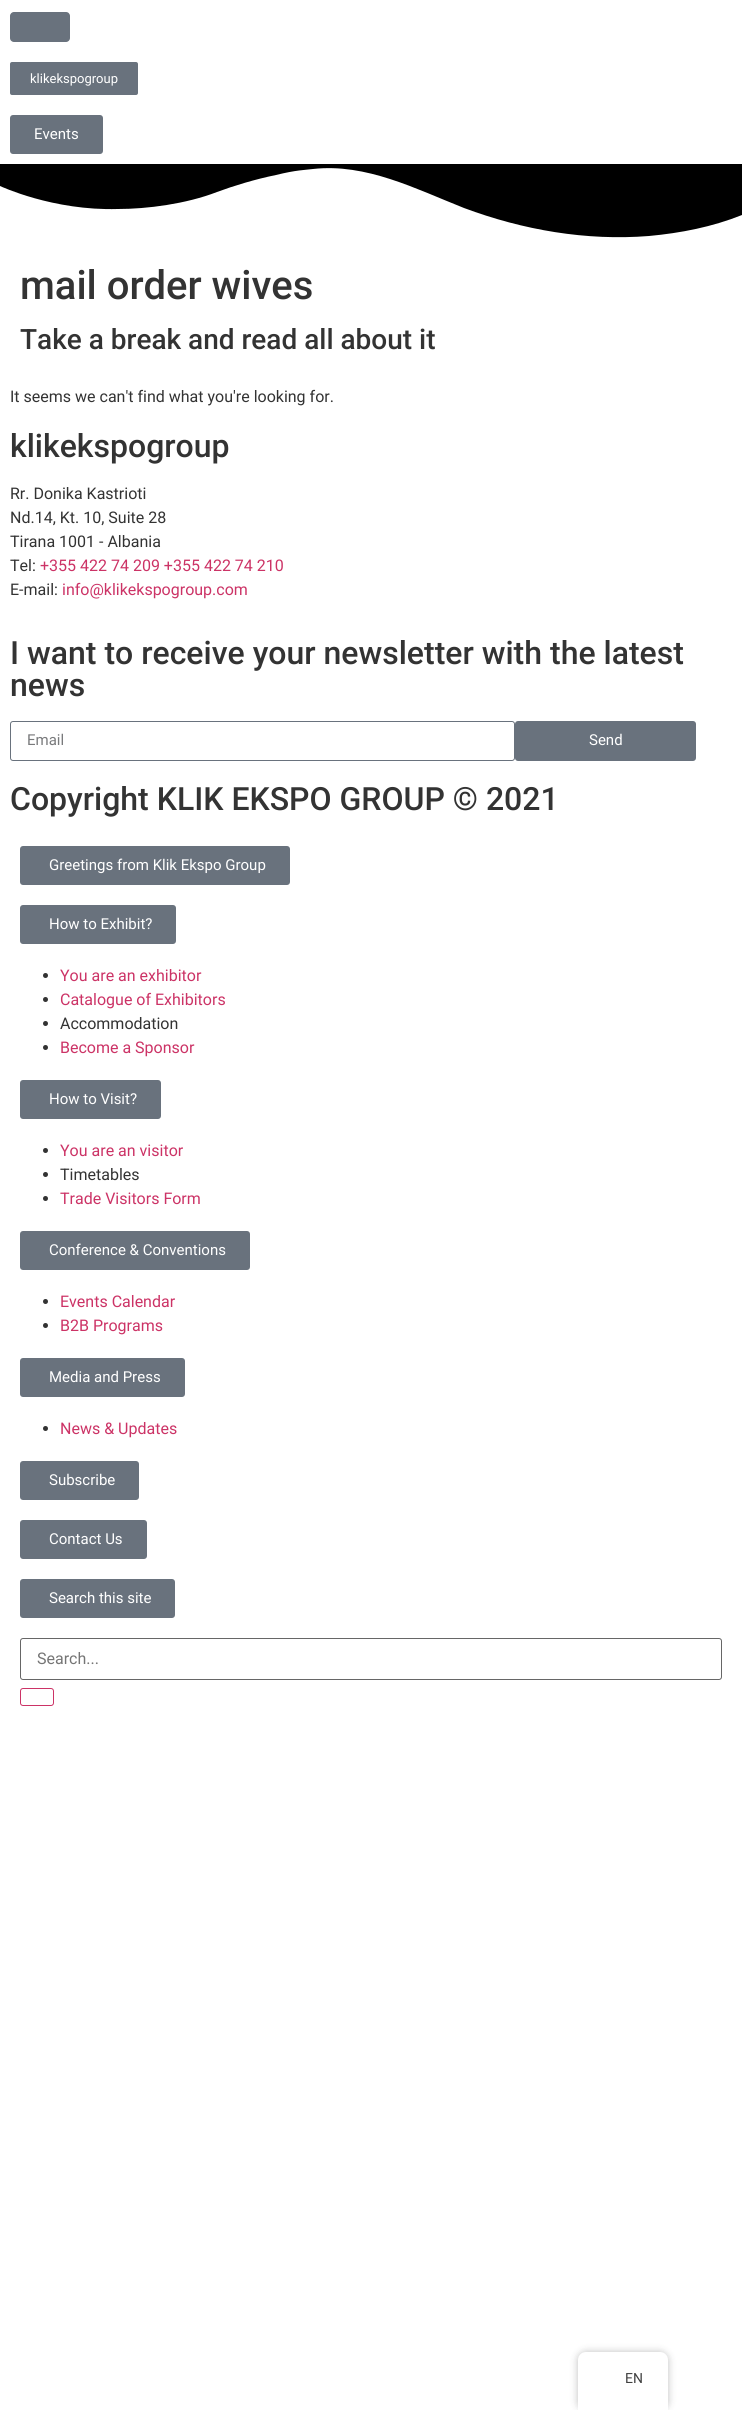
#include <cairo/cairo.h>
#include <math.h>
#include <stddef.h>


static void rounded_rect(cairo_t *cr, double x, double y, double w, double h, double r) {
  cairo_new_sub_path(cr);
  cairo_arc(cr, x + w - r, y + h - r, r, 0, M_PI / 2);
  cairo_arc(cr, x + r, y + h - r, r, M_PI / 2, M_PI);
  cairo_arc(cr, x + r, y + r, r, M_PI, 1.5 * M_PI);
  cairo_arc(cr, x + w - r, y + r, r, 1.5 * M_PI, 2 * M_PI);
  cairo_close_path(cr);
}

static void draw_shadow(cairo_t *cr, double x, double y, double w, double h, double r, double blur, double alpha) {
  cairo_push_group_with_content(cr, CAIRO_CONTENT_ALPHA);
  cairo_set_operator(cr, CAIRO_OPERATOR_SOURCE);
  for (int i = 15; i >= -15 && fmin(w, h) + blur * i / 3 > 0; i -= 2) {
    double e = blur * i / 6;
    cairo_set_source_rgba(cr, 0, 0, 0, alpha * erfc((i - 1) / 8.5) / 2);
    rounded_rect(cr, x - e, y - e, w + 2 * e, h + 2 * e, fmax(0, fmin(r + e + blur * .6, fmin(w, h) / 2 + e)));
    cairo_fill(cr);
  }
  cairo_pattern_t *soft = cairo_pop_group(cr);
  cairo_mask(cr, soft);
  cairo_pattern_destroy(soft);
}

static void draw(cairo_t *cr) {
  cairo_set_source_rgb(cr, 1, 1, 1);
  cairo_paint(cr);
  cairo_set_source_rgb(cr, 105 / 255.0, 114 / 255.0, 125 / 255.0);
  rounded_rect(cr, 10, 12, 60, 30, 4);
  cairo_fill(cr);
  rounded_rect(cr, 10, 62, 128, 33, 2);
  cairo_fill(cr);
  rounded_rect(cr, 10, 115, 93, 39, 3);
  cairo_fill(cr);
  cairo_set_source_rgb(cr, 0, 0, 0);
  cairo_new_path(cr);
  cairo_move_to(cr, 313, 169);
  cairo_curve_to(cr, 366, 163, 416, 189, 464, 208);
  cairo_curve_to(cr, 523, 230, 586, 241, 649, 236);
  cairo_curve_to(cr, 681, 233, 712, 227, 742, 215);
  cairo_line_to(cr, 742, 164);
  cairo_line_to(cr, 0, 164);
  cairo_line_to(cr, 0, 186);
  cairo_curve_to(cr, 0, 186, 53, 211, 118, 209);
  cairo_curve_to(cr, 147, 209, 186, 204, 217, 192);
  cairo_curve_to(cr, 233, 186, 256, 179, 276, 175);
  cairo_curve_to(cr, 296, 170, 305, 170, 313, 169);
  cairo_close_path(cr);
  cairo_fill(cr);
  rounded_rect(cr, 10.5, 721.5, 504, 39, 2.5);
  cairo_set_source_rgb(cr, 105 / 255.0, 114 / 255.0, 125 / 255.0);
  cairo_set_line_width(cr, 1);
  cairo_stroke(cr);
  rounded_rect(cr, 515, 721, 181, 40, 3);
  cairo_fill(cr);
  rounded_rect(cr, 20, 846, 270, 39, 3);
  cairo_fill(cr);
  rounded_rect(cr, 20, 905, 156, 39, 3);
  cairo_fill(cr);
  cairo_set_source_rgb(cr, 51 / 255.0, 51 / 255.0, 51 / 255.0);
  cairo_arc(cr, 45.5, 975.5, 2.5, 0, 2 * M_PI);
  cairo_fill(cr);
  cairo_arc(cr, 45.5, 999.5, 2.5, 0, 2 * M_PI);
  cairo_fill(cr);
  cairo_arc(cr, 45.5, 1023.5, 2.5, 0, 2 * M_PI);
  cairo_fill(cr);
  cairo_arc(cr, 45.5, 1047.5, 2.5, 0, 2 * M_PI);
  cairo_fill(cr);
  cairo_set_source_rgb(cr, 105 / 255.0, 114 / 255.0, 125 / 255.0);
  rounded_rect(cr, 20, 1080, 141, 39, 3);
  cairo_fill(cr);
  cairo_set_source_rgb(cr, 51 / 255.0, 51 / 255.0, 51 / 255.0);
  cairo_arc(cr, 45.5, 1150.5, 2.5, 0, 2 * M_PI);
  cairo_fill(cr);
  cairo_arc(cr, 45.5, 1174.5, 2.5, 0, 2 * M_PI);
  cairo_fill(cr);
  cairo_arc(cr, 45.5, 1198.5, 2.5, 0, 2 * M_PI);
  cairo_fill(cr);
  cairo_set_source_rgb(cr, 105 / 255.0, 114 / 255.0, 125 / 255.0);
  rounded_rect(cr, 20, 1231, 230, 39, 3);
  cairo_fill(cr);
  cairo_set_source_rgb(cr, 51 / 255.0, 51 / 255.0, 51 / 255.0);
  cairo_arc(cr, 45.5, 1301.5, 2.5, 0, 2 * M_PI);
  cairo_fill(cr);
  cairo_arc(cr, 45.5, 1325.5, 2.5, 0, 2 * M_PI);
  cairo_fill(cr);
  cairo_set_source_rgb(cr, 105 / 255.0, 114 / 255.0, 125 / 255.0);
  rounded_rect(cr, 20, 1358, 165, 39, 3);
  cairo_fill(cr);
  cairo_set_source_rgb(cr, 51 / 255.0, 51 / 255.0, 51 / 255.0);
  cairo_arc(cr, 45.5, 1428.5, 2.5, 0, 2 * M_PI);
  cairo_fill(cr);
  cairo_set_source_rgb(cr, 105 / 255.0, 114 / 255.0, 125 / 255.0);
  rounded_rect(cr, 20, 1461, 119, 39, 3);
  cairo_fill(cr);
  rounded_rect(cr, 20, 1520, 127, 39, 3);
  cairo_fill(cr);
  rounded_rect(cr, 20, 1579, 155, 39, 3);
  cairo_fill(cr);
  rounded_rect(cr, 20.5, 1638.5, 701, 41, 2.5);
  cairo_set_source_rgb(cr, 102 / 255.0, 102 / 255.0, 102 / 255.0);
  cairo_stroke(cr);
  rounded_rect(cr, 20.5, 1688.5, 33, 17, 2.5);
  cairo_set_source_rgb(cr, 204 / 255.0, 51 / 255.0, 102 / 255.0);
  cairo_stroke(cr);
  cairo_set_source_rgb(cr, 0, 0, 0);
  draw_shadow(cr, 578, 2352, 90, 58, 8, 4, 0.25);
  cairo_set_source_rgb(cr, 1, 1, 1);
  cairo_new_path(cr);
  cairo_move_to(cr, 586, 2352);
  cairo_line_to(cr, 660, 2352);
  cairo_curve_to(cr, 664.5, 2352, 668, 2355.5, 668, 2360);
  cairo_line_to(cr, 668, 2410);
  cairo_line_to(cr, 578, 2410);
  cairo_line_to(cr, 578, 2360);
  cairo_curve_to(cr, 578, 2355.5, 581.5, 2352, 586, 2352);
  cairo_close_path(cr);
  cairo_fill(cr);
  cairo_select_font_face(cr, "Roboto", CAIRO_FONT_SLANT_NORMAL, CAIRO_FONT_WEIGHT_NORMAL);
  cairo_set_font_size(cr, 13);
  cairo_move_to(cr, 30, 83);
  cairo_show_text(cr, "klikekspogroup");
  cairo_set_font_size(cr, 15);
  cairo_move_to(cr, 34, 139);
  cairo_show_text(cr, "Events");
  cairo_select_font_face(cr, "Roboto Medium", CAIRO_FONT_SLANT_NORMAL, CAIRO_FONT_WEIGHT_NORMAL);
  cairo_set_font_size(cr, 40);
  cairo_set_source_rgb(cr, 51 / 255.0, 51 / 255.0, 51 / 255.0);
  cairo_move_to(cr, 20, 299);
  cairo_show_text(cr, "mail order wives");
  cairo_set_font_size(cr, 28);
  cairo_move_to(cr, 20, 349);
  cairo_show_text(cr, "Take a break and read all about it");
  cairo_select_font_face(cr, "Roboto", CAIRO_FONT_SLANT_NORMAL, CAIRO_FONT_WEIGHT_NORMAL);
  cairo_set_font_size(cr, 16);
  cairo_move_to(cr, 10, 402);
  cairo_show_text(cr, "It seems we can't find what you're looking for.");
  cairo_select_font_face(cr, "Roboto Medium", CAIRO_FONT_SLANT_NORMAL, CAIRO_FONT_WEIGHT_NORMAL);
  cairo_set_font_size(cr, 32);
  cairo_move_to(cr, 10, 457);
  cairo_show_text(cr, "klikekspogroup");
  cairo_select_font_face(cr, "Roboto", CAIRO_FONT_SLANT_NORMAL, CAIRO_FONT_WEIGHT_NORMAL);
  cairo_set_font_size(cr, 16);
  cairo_move_to(cr, 10, 499);
  cairo_show_text(cr, "Rr. Donika Kastrioti");
  cairo_move_to(cr, 10, 523);
  cairo_show_text(cr, "Nd.14, Kt. 10, Suite 28");
  cairo_move_to(cr, 10, 547);
  cairo_show_text(cr, "Tirana 1001 - Albania");
  cairo_move_to(cr, 10, 571);
  cairo_show_text(cr, "Tel:");
  cairo_set_source_rgb(cr, 204 / 255.0, 51 / 255.0, 102 / 255.0);
  cairo_move_to(cr, 40, 571);
  cairo_show_text(cr, "+355 422 74 209 +355 422 74 210");
  cairo_set_source_rgb(cr, 51 / 255.0, 51 / 255.0, 51 / 255.0);
  cairo_move_to(cr, 10, 595);
  cairo_show_text(cr, "E-mail:");
  cairo_set_source_rgb(cr, 204 / 255.0, 51 / 255.0, 102 / 255.0);
  cairo_move_to(cr, 62, 595);
  cairo_show_text(cr, "info@klikekspogroup.com");
  cairo_select_font_face(cr, "Roboto Medium", CAIRO_FONT_SLANT_NORMAL, CAIRO_FONT_WEIGHT_NORMAL);
  cairo_set_font_size(cr, 32);
  cairo_set_source_rgb(cr, 51 / 255.0, 51 / 255.0, 51 / 255.0);
  cairo_move_to(cr, 10, 664);
  cairo_show_text(cr, "I want to receive your newsletter with the latest");
  cairo_move_to(cr, 10, 696);
  cairo_show_text(cr, "news");
  cairo_select_font_face(cr, "Roboto", CAIRO_FONT_SLANT_NORMAL, CAIRO_FONT_WEIGHT_NORMAL);
  cairo_set_font_size(cr, 15);
  cairo_set_source_rgb(cr, 121 / 255.0, 122 / 255.0, 124 / 255.0);
  cairo_move_to(cr, 27, 745);
  cairo_show_text(cr, "Email");
  cairo_set_source_rgb(cr, 1, 1, 1);
  cairo_move_to(cr, 589, 745);
  cairo_show_text(cr, "Send");
  cairo_select_font_face(cr, "Roboto Medium", CAIRO_FONT_SLANT_NORMAL, CAIRO_FONT_WEIGHT_NORMAL);
  cairo_set_font_size(cr, 32);
  cairo_set_source_rgb(cr, 51 / 255.0, 51 / 255.0, 51 / 255.0);
  cairo_move_to(cr, 10, 810);
  cairo_show_text(cr, "Copyright KLIK EKSPO GROUP © 2021");
  cairo_select_font_face(cr, "Roboto", CAIRO_FONT_SLANT_NORMAL, CAIRO_FONT_WEIGHT_NORMAL);
  cairo_set_font_size(cr, 15);
  cairo_set_source_rgb(cr, 1, 1, 1);
  cairo_move_to(cr, 49, 870);
  cairo_show_text(cr, "Greetings from Klik Ekspo Group");
  cairo_move_to(cr, 49, 929);
  cairo_show_text(cr, "How to Exhibit?");
  cairo_set_font_size(cr, 16);
  cairo_set_source_rgb(cr, 204 / 255.0, 51 / 255.0, 102 / 255.0);
  cairo_move_to(cr, 60, 981);
  cairo_show_text(cr, "You are an exhibitor");
  cairo_move_to(cr, 60, 1005);
  cairo_show_text(cr, "Catalogue of Exhibitors");
  cairo_set_source_rgb(cr, 51 / 255.0, 51 / 255.0, 51 / 255.0);
  cairo_move_to(cr, 60, 1029);
  cairo_show_text(cr, "Accommodation");
  cairo_set_source_rgb(cr, 204 / 255.0, 51 / 255.0, 102 / 255.0);
  cairo_move_to(cr, 60, 1053);
  cairo_show_text(cr, "Become a Sponsor");
  cairo_set_font_size(cr, 15);
  cairo_set_source_rgb(cr, 1, 1, 1);
  cairo_move_to(cr, 49, 1104);
  cairo_show_text(cr, "How to Visit?");
  cairo_set_font_size(cr, 16);
  cairo_set_source_rgb(cr, 204 / 255.0, 51 / 255.0, 102 / 255.0);
  cairo_move_to(cr, 60, 1156);
  cairo_show_text(cr, "You are an visitor");
  cairo_set_source_rgb(cr, 51 / 255.0, 51 / 255.0, 51 / 255.0);
  cairo_move_to(cr, 60, 1180);
  cairo_show_text(cr, "Timetables");
  cairo_set_source_rgb(cr, 204 / 255.0, 51 / 255.0, 102 / 255.0);
  cairo_move_to(cr, 60, 1204);
  cairo_show_text(cr, "Trade Visitors Form");
  cairo_set_font_size(cr, 15);
  cairo_set_source_rgb(cr, 1, 1, 1);
  cairo_move_to(cr, 49, 1255);
  cairo_show_text(cr, "Conference & Conventions");
  cairo_set_font_size(cr, 16);
  cairo_set_source_rgb(cr, 204 / 255.0, 51 / 255.0, 102 / 255.0);
  cairo_move_to(cr, 60, 1307);
  cairo_show_text(cr, "Events Calendar");
  cairo_move_to(cr, 60, 1331);
  cairo_show_text(cr, "B2B Programs");
  cairo_set_font_size(cr, 15);
  cairo_set_source_rgb(cr, 1, 1, 1);
  cairo_move_to(cr, 49, 1382);
  cairo_show_text(cr, "Media and Press");
  cairo_set_font_size(cr, 16);
  cairo_set_source_rgb(cr, 204 / 255.0, 51 / 255.0, 102 / 255.0);
  cairo_move_to(cr, 60, 1434);
  cairo_show_text(cr, "News & Updates");
  cairo_set_font_size(cr, 15);
  cairo_set_source_rgb(cr, 1, 1, 1);
  cairo_move_to(cr, 49, 1485);
  cairo_show_text(cr, "Subscribe");
  cairo_move_to(cr, 49, 1544);
  cairo_show_text(cr, "Contact Us");
  cairo_move_to(cr, 49, 1603);
  cairo_show_text(cr, "Search this site");
  cairo_set_font_size(cr, 16);
  cairo_set_source_rgb(cr, 117 / 255.0, 117 / 255.0, 117 / 255.0);
  cairo_move_to(cr, 37, 1664);
  cairo_show_text(cr, "Search...");
  cairo_set_font_size(cr, 14);
  cairo_set_source_rgb(cr, 64 / 255.0, 64 / 255.0, 64 / 255.0);
  cairo_move_to(cr, 625, 2383);
  cairo_show_text(cr, "EN");
}

int main(void) {
  cairo_surface_t *surface = cairo_image_surface_create(CAIRO_FORMAT_RGB24, 742, 2410);
  cairo_t *cr = cairo_create(surface);
  cairo_font_options_t *options = cairo_font_options_create();
  cairo_font_options_set_hint_metrics(options, CAIRO_HINT_METRICS_OFF);
  cairo_font_options_set_hint_style(options, CAIRO_HINT_STYLE_NONE);
  cairo_set_font_options(cr, options);
  cairo_set_miter_limit(cr, 4);
  draw(cr);
  cairo_surface_write_to_png(surface, "out.png");
  cairo_font_options_destroy(options);
  cairo_destroy(cr);
  cairo_surface_destroy(surface);
  return 0;
}
